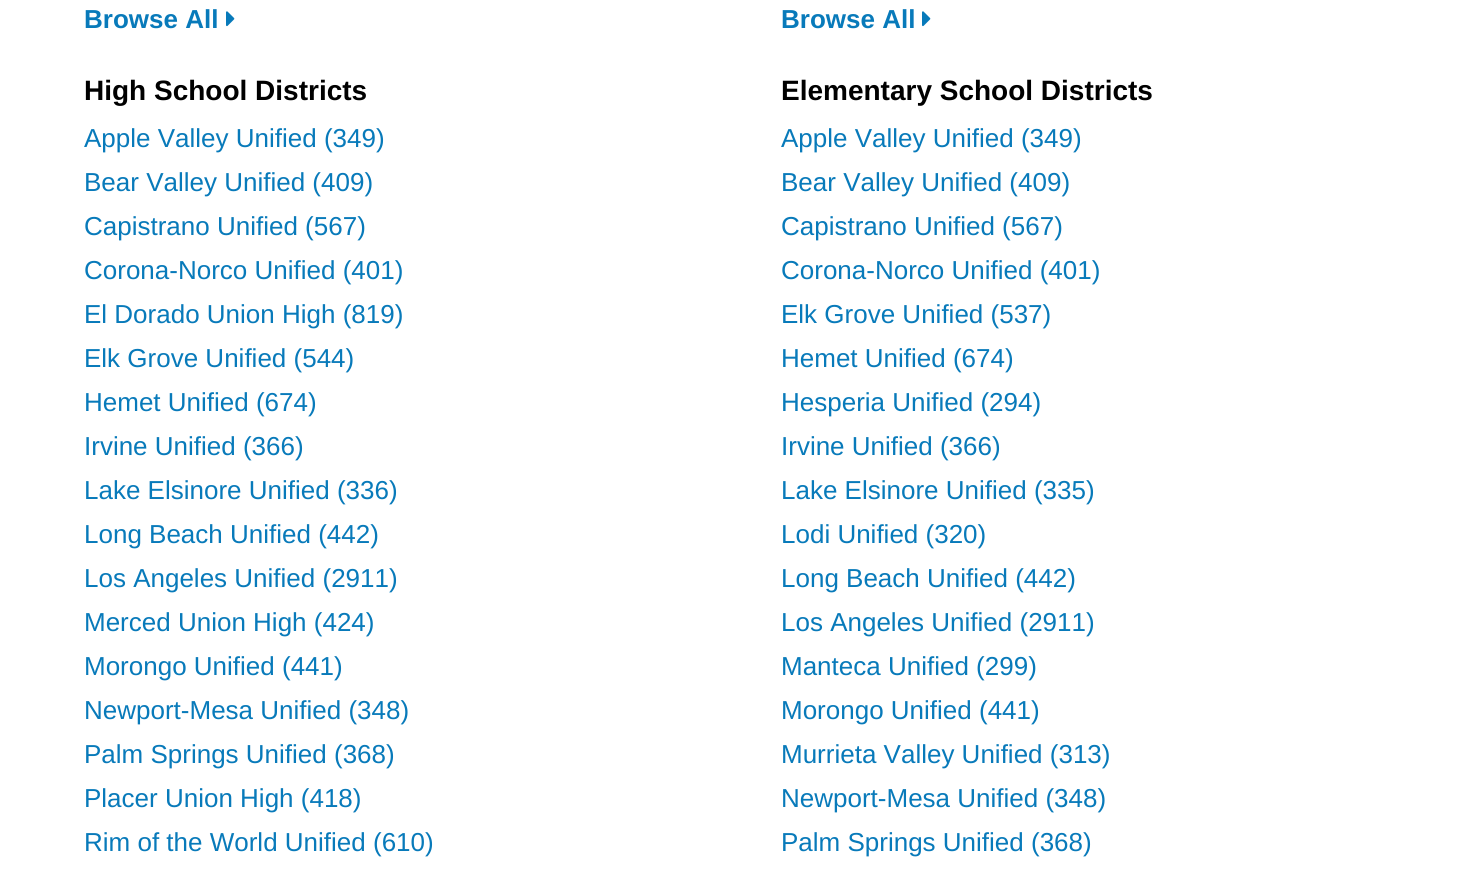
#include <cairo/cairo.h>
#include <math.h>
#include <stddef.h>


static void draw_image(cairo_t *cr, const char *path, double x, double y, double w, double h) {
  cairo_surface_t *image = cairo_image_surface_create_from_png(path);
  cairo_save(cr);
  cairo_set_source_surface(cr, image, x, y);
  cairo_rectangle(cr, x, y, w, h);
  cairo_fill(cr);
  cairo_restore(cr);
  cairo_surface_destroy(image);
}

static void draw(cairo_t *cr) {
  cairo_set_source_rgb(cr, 1, 1, 1);
  cairo_paint(cr);
  draw_image(cr, "images/1.png", 226, 11, 9, 16);
  draw_image(cr, "images/1.png", 922, 11, 9, 16);
  cairo_select_font_face(cr, "Liberation Sans", CAIRO_FONT_SLANT_NORMAL, CAIRO_FONT_WEIGHT_BOLD);
  cairo_set_font_size(cr, 26);
  cairo_set_source_rgb(cr, 8 / 255.0, 122 / 255.0, 186 / 255.0);
  cairo_move_to(cr, 84, 28);
  cairo_show_text(cr, "Browse All");
  cairo_move_to(cr, 781, 28);
  cairo_show_text(cr, "Browse All");
  cairo_set_font_size(cr, 28);
  cairo_set_source_rgb(cr, 0, 0, 0);
  cairo_move_to(cr, 84, 100);
  cairo_show_text(cr, "High School Districts");
  cairo_select_font_face(cr, "Liberation Sans", CAIRO_FONT_SLANT_NORMAL, CAIRO_FONT_WEIGHT_NORMAL);
  cairo_set_font_size(cr, 26);
  cairo_set_source_rgb(cr, 8 / 255.0, 122 / 255.0, 186 / 255.0);
  cairo_move_to(cr, 84, 147);
  cairo_show_text(cr, "Apple Valley Unified (349)");
  cairo_move_to(cr, 84, 191);
  cairo_show_text(cr, "Bear Valley Unified (409)");
  cairo_move_to(cr, 84, 235);
  cairo_show_text(cr, "Capistrano Unified (567)");
  cairo_move_to(cr, 84, 279);
  cairo_show_text(cr, "Corona-Norco Unified (401)");
  cairo_move_to(cr, 84, 323);
  cairo_show_text(cr, "El Dorado Union High (819)");
  cairo_move_to(cr, 84, 367);
  cairo_show_text(cr, "Elk Grove Unified (544)");
  cairo_move_to(cr, 84, 411);
  cairo_show_text(cr, "Hemet Unified (674)");
  cairo_move_to(cr, 84, 455);
  cairo_show_text(cr, "Irvine Unified (366)");
  cairo_move_to(cr, 84, 499);
  cairo_show_text(cr, "Lake Elsinore Unified (336)");
  cairo_move_to(cr, 84, 543);
  cairo_show_text(cr, "Long Beach Unified (442)");
  cairo_move_to(cr, 84, 587);
  cairo_show_text(cr, "Los Angeles Unified (2911)");
  cairo_move_to(cr, 84, 631);
  cairo_show_text(cr, "Merced Union High (424)");
  cairo_move_to(cr, 84, 675);
  cairo_show_text(cr, "Morongo Unified (441)");
  cairo_move_to(cr, 84, 719);
  cairo_show_text(cr, "Newport-Mesa Unified (348)");
  cairo_move_to(cr, 84, 763);
  cairo_show_text(cr, "Palm Springs Unified (368)");
  cairo_move_to(cr, 84, 807);
  cairo_show_text(cr, "Placer Union High (418)");
  cairo_move_to(cr, 84, 851);
  cairo_show_text(cr, "Rim of the World Unified (610)");
  cairo_select_font_face(cr, "Liberation Sans", CAIRO_FONT_SLANT_NORMAL, CAIRO_FONT_WEIGHT_BOLD);
  cairo_set_font_size(cr, 28);
  cairo_set_source_rgb(cr, 0, 0, 0);
  cairo_move_to(cr, 781, 100);
  cairo_show_text(cr, "Elementary School Districts");
  cairo_select_font_face(cr, "Liberation Sans", CAIRO_FONT_SLANT_NORMAL, CAIRO_FONT_WEIGHT_NORMAL);
  cairo_set_font_size(cr, 26);
  cairo_set_source_rgb(cr, 8 / 255.0, 122 / 255.0, 186 / 255.0);
  cairo_move_to(cr, 781, 147);
  cairo_show_text(cr, "Apple Valley Unified (349)");
  cairo_move_to(cr, 781, 191);
  cairo_show_text(cr, "Bear Valley Unified (409)");
  cairo_move_to(cr, 781, 235);
  cairo_show_text(cr, "Capistrano Unified (567)");
  cairo_move_to(cr, 781, 279);
  cairo_show_text(cr, "Corona-Norco Unified (401)");
  cairo_move_to(cr, 781, 323);
  cairo_show_text(cr, "Elk Grove Unified (537)");
  cairo_move_to(cr, 781, 367);
  cairo_show_text(cr, "Hemet Unified (674)");
  cairo_move_to(cr, 781, 411);
  cairo_show_text(cr, "Hesperia Unified (294)");
  cairo_move_to(cr, 781, 455);
  cairo_show_text(cr, "Irvine Unified (366)");
  cairo_move_to(cr, 781, 499);
  cairo_show_text(cr, "Lake Elsinore Unified (335)");
  cairo_move_to(cr, 781, 543);
  cairo_show_text(cr, "Lodi Unified (320)");
  cairo_move_to(cr, 781, 587);
  cairo_show_text(cr, "Long Beach Unified (442)");
  cairo_move_to(cr, 781, 631);
  cairo_show_text(cr, "Los Angeles Unified (2911)");
  cairo_move_to(cr, 781, 675);
  cairo_show_text(cr, "Manteca Unified (299)");
  cairo_move_to(cr, 781, 719);
  cairo_show_text(cr, "Morongo Unified (441)");
  cairo_move_to(cr, 781, 763);
  cairo_show_text(cr, "Murrieta Valley Unified (313)");
  cairo_move_to(cr, 781, 807);
  cairo_show_text(cr, "Newport-Mesa Unified (348)");
  cairo_move_to(cr, 781, 851);
  cairo_show_text(cr, "Palm Springs Unified (368)");
}

int main(void) {
  cairo_surface_t *surface = cairo_image_surface_create(CAIRO_FORMAT_RGB24, 1478, 882);
  cairo_t *cr = cairo_create(surface);
  cairo_font_options_t *options = cairo_font_options_create();
  cairo_font_options_set_hint_metrics(options, CAIRO_HINT_METRICS_OFF);
  cairo_font_options_set_hint_style(options, CAIRO_HINT_STYLE_NONE);
  cairo_set_font_options(cr, options);
  cairo_set_miter_limit(cr, 4);
  draw(cr);
  cairo_surface_write_to_png(surface, "out.png");
  cairo_font_options_destroy(options);
  cairo_destroy(cr);
  cairo_surface_destroy(surface);
  return 0;
}
